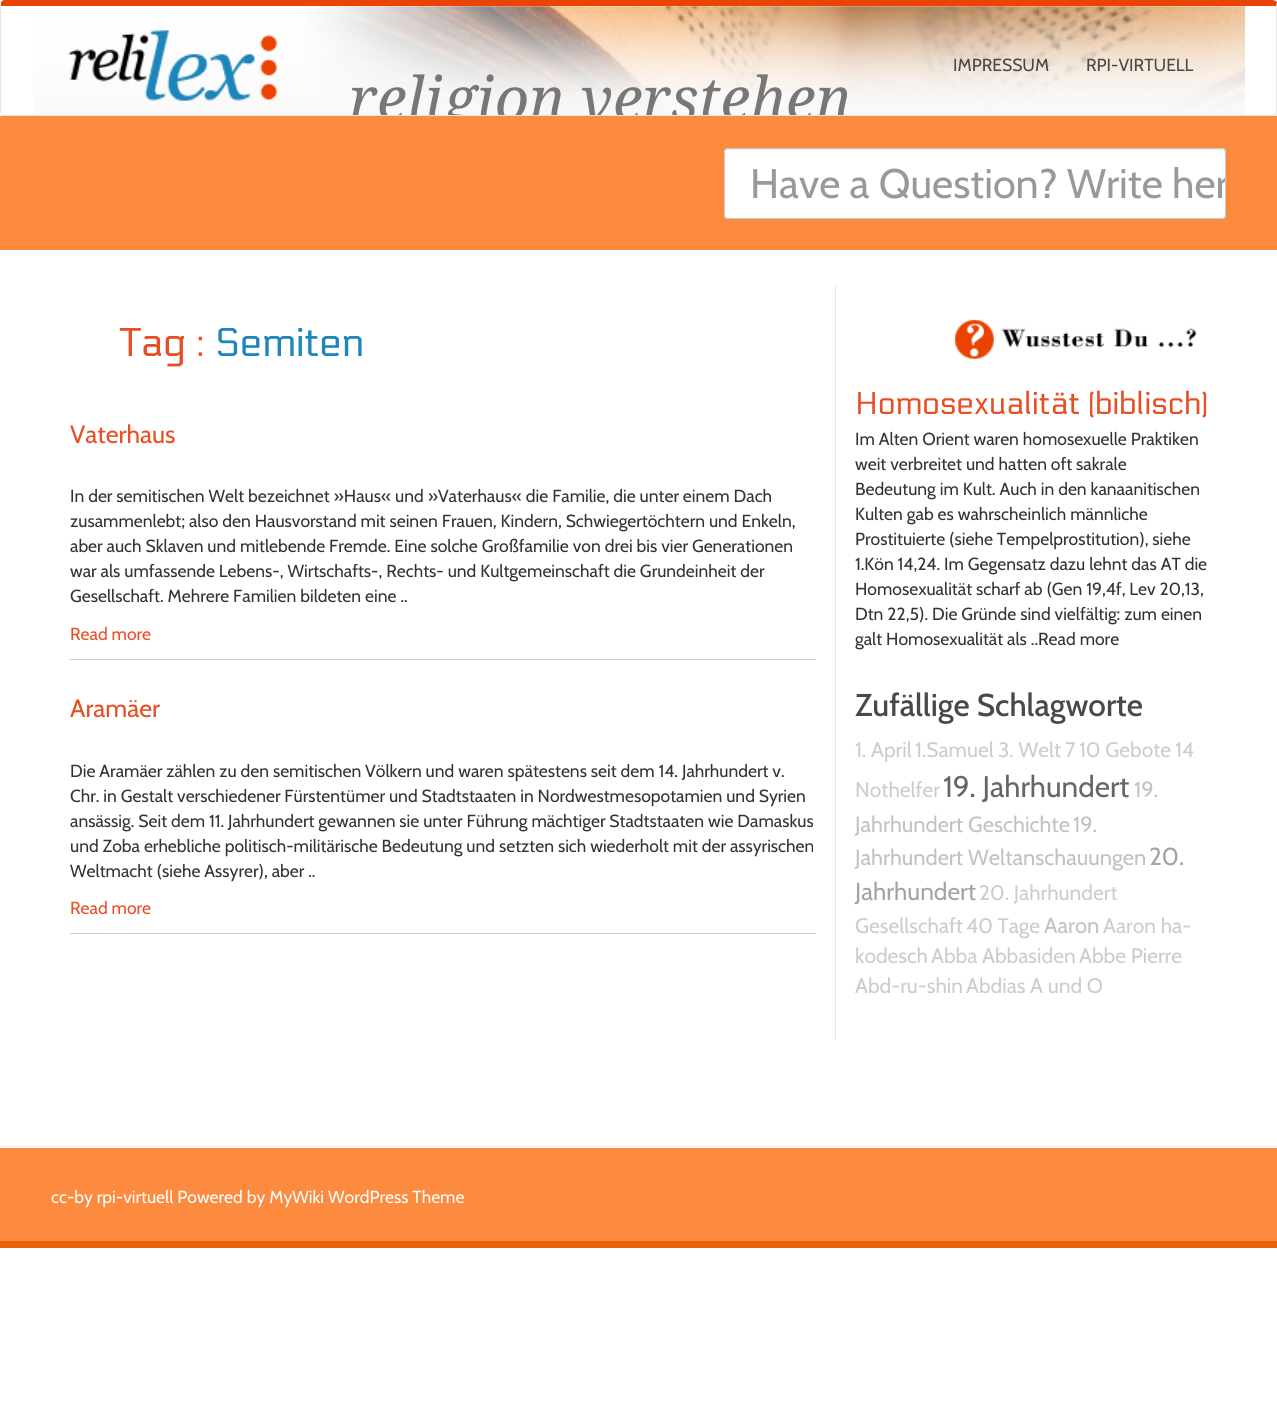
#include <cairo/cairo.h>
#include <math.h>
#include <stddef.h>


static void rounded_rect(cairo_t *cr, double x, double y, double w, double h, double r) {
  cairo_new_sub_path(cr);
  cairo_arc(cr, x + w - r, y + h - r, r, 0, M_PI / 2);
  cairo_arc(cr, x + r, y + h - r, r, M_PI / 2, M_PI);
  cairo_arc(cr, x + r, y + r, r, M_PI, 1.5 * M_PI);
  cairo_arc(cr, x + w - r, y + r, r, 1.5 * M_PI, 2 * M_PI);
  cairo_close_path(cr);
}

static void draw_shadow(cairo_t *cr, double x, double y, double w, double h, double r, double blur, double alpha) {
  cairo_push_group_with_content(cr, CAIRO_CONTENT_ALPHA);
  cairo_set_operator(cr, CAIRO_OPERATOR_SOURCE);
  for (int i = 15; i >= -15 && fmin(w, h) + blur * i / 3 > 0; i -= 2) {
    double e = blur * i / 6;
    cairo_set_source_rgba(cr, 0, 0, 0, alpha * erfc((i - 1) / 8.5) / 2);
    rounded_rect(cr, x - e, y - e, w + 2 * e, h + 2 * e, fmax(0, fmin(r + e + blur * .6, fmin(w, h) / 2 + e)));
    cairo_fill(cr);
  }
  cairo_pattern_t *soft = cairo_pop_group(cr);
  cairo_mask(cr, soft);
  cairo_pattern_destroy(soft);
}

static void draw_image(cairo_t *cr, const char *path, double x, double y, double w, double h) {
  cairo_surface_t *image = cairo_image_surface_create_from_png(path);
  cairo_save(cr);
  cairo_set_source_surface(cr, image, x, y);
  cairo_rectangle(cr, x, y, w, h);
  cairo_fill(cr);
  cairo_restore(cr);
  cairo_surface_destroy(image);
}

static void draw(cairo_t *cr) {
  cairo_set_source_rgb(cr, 1, 1, 1);
  cairo_paint(cr);
  cairo_save(cr);
  cairo_set_fill_rule(cr, CAIRO_FILL_RULE_EVEN_ODD);
  cairo_new_path(cr);
  cairo_move_to(cr, 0, 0);
  cairo_line_to(cr, 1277, 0);
  cairo_line_to(cr, 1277, 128);
  cairo_line_to(cr, 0, 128);
  cairo_close_path(cr);
  cairo_move_to(cr, 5, 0);
  cairo_line_to(cr, 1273, 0);
  cairo_curve_to(cr, 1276, 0, 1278, 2, 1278, 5);
  cairo_line_to(cr, 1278, 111);
  cairo_curve_to(cr, 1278, 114, 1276, 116, 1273, 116);
  cairo_line_to(cr, 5, 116);
  cairo_curve_to(cr, 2, 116, 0, 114, 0, 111);
  cairo_line_to(cr, 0, 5);
  cairo_curve_to(cr, 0, 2, 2, 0, 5, 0);
  cairo_close_path(cr);
  cairo_clip(cr);
  cairo_set_source_rgb(cr, 0, 0, 0);
  draw_shadow(cr, 0, 1, 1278, 117, 5, 3, 0.07);
  cairo_restore(cr);
  cairo_set_source_rgb(cr, 235 / 255.0, 67 / 255.0, 4 / 255.0);
  cairo_new_path(cr);
  cairo_move_to(cr, 5, 0);
  cairo_curve_to(cr, 3, 0, 1, 1, 1, 3);
  cairo_line_to(cr, 1, 6);
  cairo_line_to(cr, 1276, 6);
  cairo_line_to(cr, 1276, 8);
  cairo_line_to(cr, 1277, 2);
  cairo_curve_to(cr, 1276, 1, 1274, 0, 1272, 0);
  cairo_close_path(cr);
  cairo_fill(cr);
  cairo_set_source_rgb(cr, 231 / 255.0, 231 / 255.0, 231 / 255.0);
  cairo_new_path(cr);
  cairo_move_to(cr, 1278, 113);
  cairo_line_to(cr, 1276, 115);
  cairo_line_to(cr, 1275, 114);
  cairo_curve_to(cr, 1276, 113, 1276, 112, 1276, 111);
  cairo_line_to(cr, 1276, 8);
  cairo_line_to(cr, 1277, 2);
  cairo_curve_to(cr, 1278, 4, 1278, 102, 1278, 113);
  cairo_close_path(cr);
  cairo_fill(cr);
  cairo_new_path(cr);
  cairo_move_to(cr, 1276, 115);
  cairo_curve_to(cr, 1275, 116, 1273, 116, 1272, 116);
  cairo_line_to(cr, 5, 116);
  cairo_curve_to(cr, 4, 116, 2, 116, 2, 115);
  cairo_line_to(cr, 2, 114);
  cairo_curve_to(cr, 3, 115, 4, 115, 5, 115);
  cairo_line_to(cr, 1272, 115);
  cairo_curve_to(cr, 1273, 115, 1274, 115, 1275, 114);
  cairo_close_path(cr);
  cairo_fill(cr);
  cairo_new_path(cr);
  cairo_move_to(cr, 0, 5);
  cairo_line_to(cr, 0, 112);
  cairo_line_to(cr, 2, 115);
  cairo_line_to(cr, 2, 114);
  cairo_line_to(cr, 1, 111);
  cairo_line_to(cr, 1, 6);
  cairo_line_to(cr, 1, 3);
  cairo_close_path(cr);
  cairo_fill(cr);
  draw_image(cr, "images/1.png", 33, 6, 1212, 109);
  cairo_set_source_rgb(cr, 252 / 255.0, 138 / 255.0, 63 / 255.0);
  cairo_rectangle(cr, 0, 116, 1277, 134);
  cairo_fill(cr);
  cairo_set_source_rgb(cr, 1, 1, 1);
  rounded_rect(cr, 724, 148, 502, 71, 4);
  cairo_fill(cr);
  cairo_set_source_rgb(cr, 236 / 255.0, 236 / 255.0, 236 / 255.0);
  cairo_new_path(cr);
  cairo_move_to(cr, 728, 150);
  cairo_line_to(cr, 1222, 150);
  cairo_curve_to(cr, 1224, 150, 1225, 151, 1225, 152);
  cairo_curve_to(cr, 1225, 150, 1224, 149, 1222, 149);
  cairo_line_to(cr, 728, 149);
  cairo_curve_to(cr, 726, 149, 725, 150, 725, 152);
  cairo_curve_to(cr, 725, 151, 726, 150, 728, 150);
  cairo_close_path(cr);
  cairo_fill(cr);
  rounded_rect(cr, 724.5, 148.5, 501, 70, 3.5);
  cairo_set_source_rgb(cr, 204 / 255.0, 204 / 255.0, 204 / 255.0);
  cairo_set_line_width(cr, 1);
  cairo_stroke(cr);
  cairo_rectangle(cr, 70, 659, 746, 1);
  cairo_fill(cr);
  cairo_rectangle(cr, 70, 933, 746, 1);
  cairo_fill(cr);
  cairo_set_source_rgb(cr, 231 / 255.0, 231 / 255.0, 231 / 255.0);
  cairo_rectangle(cr, 835, 285, 1, 755);
  cairo_fill(cr);
  draw_image(cr, "images/2.png", 954, 319, 243, 41);
  cairo_set_source_rgb(cr, 238 / 255.0, 238 / 255.0, 238 / 255.0);
  cairo_rectangle(cr, 0, 1146, 1277, 1);
  cairo_fill(cr);
  cairo_set_source_rgb(cr, 252 / 255.0, 138 / 255.0, 63 / 255.0);
  cairo_rectangle(cr, 0, 1148, 1277, 93);
  cairo_fill(cr);
  cairo_set_source_rgb(cr, 234 / 255.0, 96 / 255.0, 4 / 255.0);
  cairo_rectangle(cr, 0, 1241, 1277, 7);
  cairo_fill(cr);
  cairo_select_font_face(cr, "Cabin", CAIRO_FONT_SLANT_NORMAL, CAIRO_FONT_WEIGHT_NORMAL);
  cairo_set_font_size(cr, 17.5);
  cairo_set_source_rgb(cr, 73 / 255.0, 73 / 255.0, 73 / 255.0);
  cairo_move_to(cr, 953, 71);
  cairo_show_text(cr, "IMPRESSUM");
  cairo_move_to(cr, 1086, 71);
  cairo_show_text(cr, "RPI-VIRTUELL");
  cairo_save(cr);
  cairo_rectangle(cr, 70, 31, 781, 84);
  cairo_clip(cr);
  cairo_select_font_face(cr, "Noto Serif", CAIRO_FONT_SLANT_ITALIC, CAIRO_FONT_WEIGHT_NORMAL);
  cairo_set_font_size(cr, 60);
  cairo_set_source_rgb(cr, 119 / 255.0, 119 / 255.0, 119 / 255.0);
  cairo_move_to(cr, 349, 120);
  cairo_show_text(cr, "religion verstehen");
  cairo_restore(cr);
  cairo_save(cr);
  cairo_rectangle(cr, 750, 159, 475, 50);
  cairo_clip(cr);
  cairo_set_font_size(cr, 41.25);
  cairo_set_source_rgb(cr, 153 / 255.0, 153 / 255.0, 153 / 255.0);
  cairo_move_to(cr, 750, 198);
  cairo_show_text(cr, "Have a Question? Write her");
  cairo_restore(cr);
  cairo_select_font_face(cr, "Electrolize", CAIRO_FONT_SLANT_NORMAL, CAIRO_FONT_WEIGHT_NORMAL);
  cairo_set_font_size(cr, 40);
  cairo_set_source_rgb(cr, 231 / 255.0, 78 / 255.0, 36 / 255.0);
  cairo_move_to(cr, 120, 356);
  cairo_show_text(cr, "Tag :");
  cairo_set_source_rgb(cr, 30 / 255.0, 134 / 255.0, 189 / 255.0);
  cairo_move_to(cr, 215, 356);
  cairo_show_text(cr, "Semiten");
  cairo_select_font_face(cr, "Cabin", CAIRO_FONT_SLANT_NORMAL, CAIRO_FONT_WEIGHT_NORMAL);
  cairo_set_font_size(cr, 25);
  cairo_set_source_rgb(cr, 231 / 255.0, 78 / 255.0, 36 / 255.0);
  cairo_move_to(cr, 70, 443);
  cairo_show_text(cr, "Vaterhaus");
  cairo_set_font_size(cr, 17.5);
  cairo_set_source_rgb(cr, 51 / 255.0, 51 / 255.0, 51 / 255.0);
  cairo_move_to(cr, 70, 502);
  cairo_show_text(cr, "In der semitischen Welt bezeichnet »Haus« und »Vaterhaus« die Familie, die unter einem Dach");
  cairo_move_to(cr, 70, 527);
  cairo_show_text(cr, "zusammenlebt; also den Hausvorstand mit seinen Frauen, Kindern, Schwiegertöchtern und Enkeln,");
  cairo_move_to(cr, 70, 552);
  cairo_show_text(cr, "aber auch Sklaven und mitlebende Fremde. Eine solche Großfamilie von drei bis vier Generationen");
  cairo_move_to(cr, 70, 577);
  cairo_show_text(cr, "war als umfassende Lebens-, Wirtschafts-, Rechts- und Kultgemeinschaft die Grundeinheit der");
  cairo_move_to(cr, 70, 602);
  cairo_show_text(cr, "Gesellschaft. Mehrere Familien bildeten eine ..");
  cairo_set_source_rgb(cr, 231 / 255.0, 78 / 255.0, 36 / 255.0);
  cairo_move_to(cr, 70, 640);
  cairo_show_text(cr, "Read more");
  cairo_set_font_size(cr, 25);
  cairo_move_to(cr, 70, 717);
  cairo_show_text(cr, "Aramäer");
  cairo_set_font_size(cr, 17.5);
  cairo_set_source_rgb(cr, 51 / 255.0, 51 / 255.0, 51 / 255.0);
  cairo_move_to(cr, 70, 777);
  cairo_show_text(cr, "Die Aramäer zählen zu den semitischen Völkern und waren spätestens seit dem 14. Jahrhundert v.");
  cairo_move_to(cr, 70, 802);
  cairo_show_text(cr, "Chr. in Gestalt verschiedener Fürstentümer und Stadtstaaten in Nordwestmesopotamien und Syrien");
  cairo_move_to(cr, 70, 827);
  cairo_show_text(cr, "ansässig. Seit dem 11. Jahrhundert gewannen sie unter Führung mächtiger Stadtstaaten wie Damaskus");
  cairo_move_to(cr, 70, 852);
  cairo_show_text(cr, "und Zoba erhebliche politisch-militärische Bedeutung und setzten sich wiederholt mit der assyrischen");
  cairo_move_to(cr, 70, 877);
  cairo_show_text(cr, "Weltmacht (siehe Assyrer), aber ..");
  cairo_set_source_rgb(cr, 231 / 255.0, 78 / 255.0, 36 / 255.0);
  cairo_move_to(cr, 70, 914);
  cairo_show_text(cr, "Read more");
  cairo_select_font_face(cr, "Electrolize", CAIRO_FONT_SLANT_NORMAL, CAIRO_FONT_WEIGHT_NORMAL);
  cairo_set_font_size(cr, 31.5);
  cairo_move_to(cr, 855, 414);
  cairo_show_text(cr, "Homosexualität (biblisch)");
  cairo_select_font_face(cr, "Cabin", CAIRO_FONT_SLANT_NORMAL, CAIRO_FONT_WEIGHT_NORMAL);
  cairo_set_font_size(cr, 17.5);
  cairo_set_source_rgb(cr, 51 / 255.0, 51 / 255.0, 51 / 255.0);
  cairo_move_to(cr, 855, 445);
  cairo_show_text(cr, "Im Alten Orient waren homosexuelle Praktiken");
  cairo_move_to(cr, 855, 470);
  cairo_show_text(cr, "weit verbreitet und hatten oft sakrale");
  cairo_move_to(cr, 855, 495);
  cairo_show_text(cr, "Bedeutung im Kult. Auch in den kanaanitischen");
  cairo_move_to(cr, 855, 520);
  cairo_show_text(cr, "Kulten gab es wahrscheinlich männliche");
  cairo_move_to(cr, 855, 545);
  cairo_show_text(cr, "Prostituierte (siehe Tempelprostitution), siehe");
  cairo_move_to(cr, 855, 570);
  cairo_show_text(cr, "1.Kön 14,24. Im Gegensatz dazu lehnt das AT die");
  cairo_move_to(cr, 855, 595);
  cairo_show_text(cr, "Homosexualität scharf ab (Gen 19,4f, Lev 20,13,");
  cairo_move_to(cr, 855, 620);
  cairo_show_text(cr, "Dtn 22,5). Die Gründe sind vielfältig: zum einen");
  cairo_move_to(cr, 855, 645);
  cairo_show_text(cr, "galt Homosexualität als ..Read more");
  cairo_select_font_face(cr, "Cabin Medium", CAIRO_FONT_SLANT_NORMAL, CAIRO_FONT_WEIGHT_NORMAL);
  cairo_set_font_size(cr, 31.5);
  cairo_set_source_rgb(cr, 73 / 255.0, 73 / 255.0, 73 / 255.0);
  cairo_move_to(cr, 855, 716);
  cairo_show_text(cr, "Zufällige Schlagworte");
  cairo_select_font_face(cr, "Cabin", CAIRO_FONT_SLANT_NORMAL, CAIRO_FONT_WEIGHT_NORMAL);
  cairo_set_font_size(cr, 21);
  cairo_set_source_rgb(cr, 204 / 255.0, 204 / 255.0, 204 / 255.0);
  cairo_move_to(cr, 855, 757);
  cairo_show_text(cr, "1. April");
  cairo_move_to(cr, 915, 757);
  cairo_show_text(cr, "1.Samuel");
  cairo_move_to(cr, 998, 757);
  cairo_show_text(cr, "3. Welt");
  cairo_move_to(cr, 1065, 757);
  cairo_show_text(cr, "7");
  cairo_move_to(cr, 1079, 757);
  cairo_show_text(cr, "10 Gebote");
  cairo_move_to(cr, 1175, 757);
  cairo_show_text(cr, "14");
  cairo_move_to(cr, 855, 797);
  cairo_show_text(cr, "Nothelfer");
  cairo_set_font_size(cr, 29.75);
  cairo_set_source_rgb(cr, 102 / 255.0, 102 / 255.0, 102 / 255.0);
  cairo_move_to(cr, 943, 797);
  cairo_show_text(cr, "19. Jahrhundert");
  cairo_set_font_size(cr, 21.9);
  cairo_set_source_rgb(cr, 193 / 255.0, 193 / 255.0, 193 / 255.0);
  cairo_move_to(cr, 1134, 797);
  cairo_show_text(cr, "19.");
  cairo_move_to(cr, 855, 832);
  cairo_show_text(cr, "Jahrhundert Geschichte");
  cairo_move_to(cr, 1073, 832);
  cairo_show_text(cr, "19.");
  cairo_move_to(cr, 855, 865);
  cairo_show_text(cr, "Jahrhundert Weltanschauungen");
  cairo_set_font_size(cr, 24.5);
  cairo_set_source_rgb(cr, 163 / 255.0, 163 / 255.0, 163 / 255.0);
  cairo_move_to(cr, 1149, 865);
  cairo_show_text(cr, "20.");
  cairo_move_to(cr, 855, 900);
  cairo_show_text(cr, "Jahrhundert");
  cairo_set_font_size(cr, 21);
  cairo_set_source_rgb(cr, 204 / 255.0, 204 / 255.0, 204 / 255.0);
  cairo_move_to(cr, 979, 900);
  cairo_show_text(cr, "20. Jahrhundert");
  cairo_move_to(cr, 855, 933);
  cairo_show_text(cr, "Gesellschaft");
  cairo_move_to(cr, 966, 933);
  cairo_show_text(cr, "40 Tage");
  cairo_set_font_size(cr, 21.9);
  cairo_set_source_rgb(cr, 193 / 255.0, 193 / 255.0, 193 / 255.0);
  cairo_move_to(cr, 1044, 933);
  cairo_show_text(cr, "Aaron");
  cairo_set_font_size(cr, 21);
  cairo_set_source_rgb(cr, 204 / 255.0, 204 / 255.0, 204 / 255.0);
  cairo_move_to(cr, 1103, 933);
  cairo_show_text(cr, "Aaron ha-");
  cairo_move_to(cr, 855, 963);
  cairo_show_text(cr, "kodesch");
  cairo_move_to(cr, 931, 963);
  cairo_show_text(cr, "Abba");
  cairo_move_to(cr, 982, 963);
  cairo_show_text(cr, "Abbasiden");
  cairo_move_to(cr, 1079, 963);
  cairo_show_text(cr, "Abbe Pierre");
  cairo_move_to(cr, 855, 993);
  cairo_show_text(cr, "Abd-ru-shin");
  cairo_move_to(cr, 966, 993);
  cairo_show_text(cr, "Abdias");
  cairo_move_to(cr, 1030, 993);
  cairo_show_text(cr, "A und O");
  cairo_set_font_size(cr, 17.5);
  cairo_set_source_rgb(cr, 1, 1, 1);
  cairo_move_to(cr, 51, 1203);
  cairo_show_text(cr, "cc-by rpi-virtuell Powered by MyWiki WordPress Theme");
}

int main(void) {
  cairo_surface_t *surface = cairo_image_surface_create(CAIRO_FORMAT_RGB24, 1277, 1419);
  cairo_t *cr = cairo_create(surface);
  cairo_font_options_t *options = cairo_font_options_create();
  cairo_font_options_set_hint_metrics(options, CAIRO_HINT_METRICS_OFF);
  cairo_font_options_set_hint_style(options, CAIRO_HINT_STYLE_NONE);
  cairo_set_font_options(cr, options);
  cairo_set_miter_limit(cr, 4);
  draw(cr);
  cairo_surface_write_to_png(surface, "out.png");
  cairo_font_options_destroy(options);
  cairo_destroy(cr);
  cairo_surface_destroy(surface);
  return 0;
}
